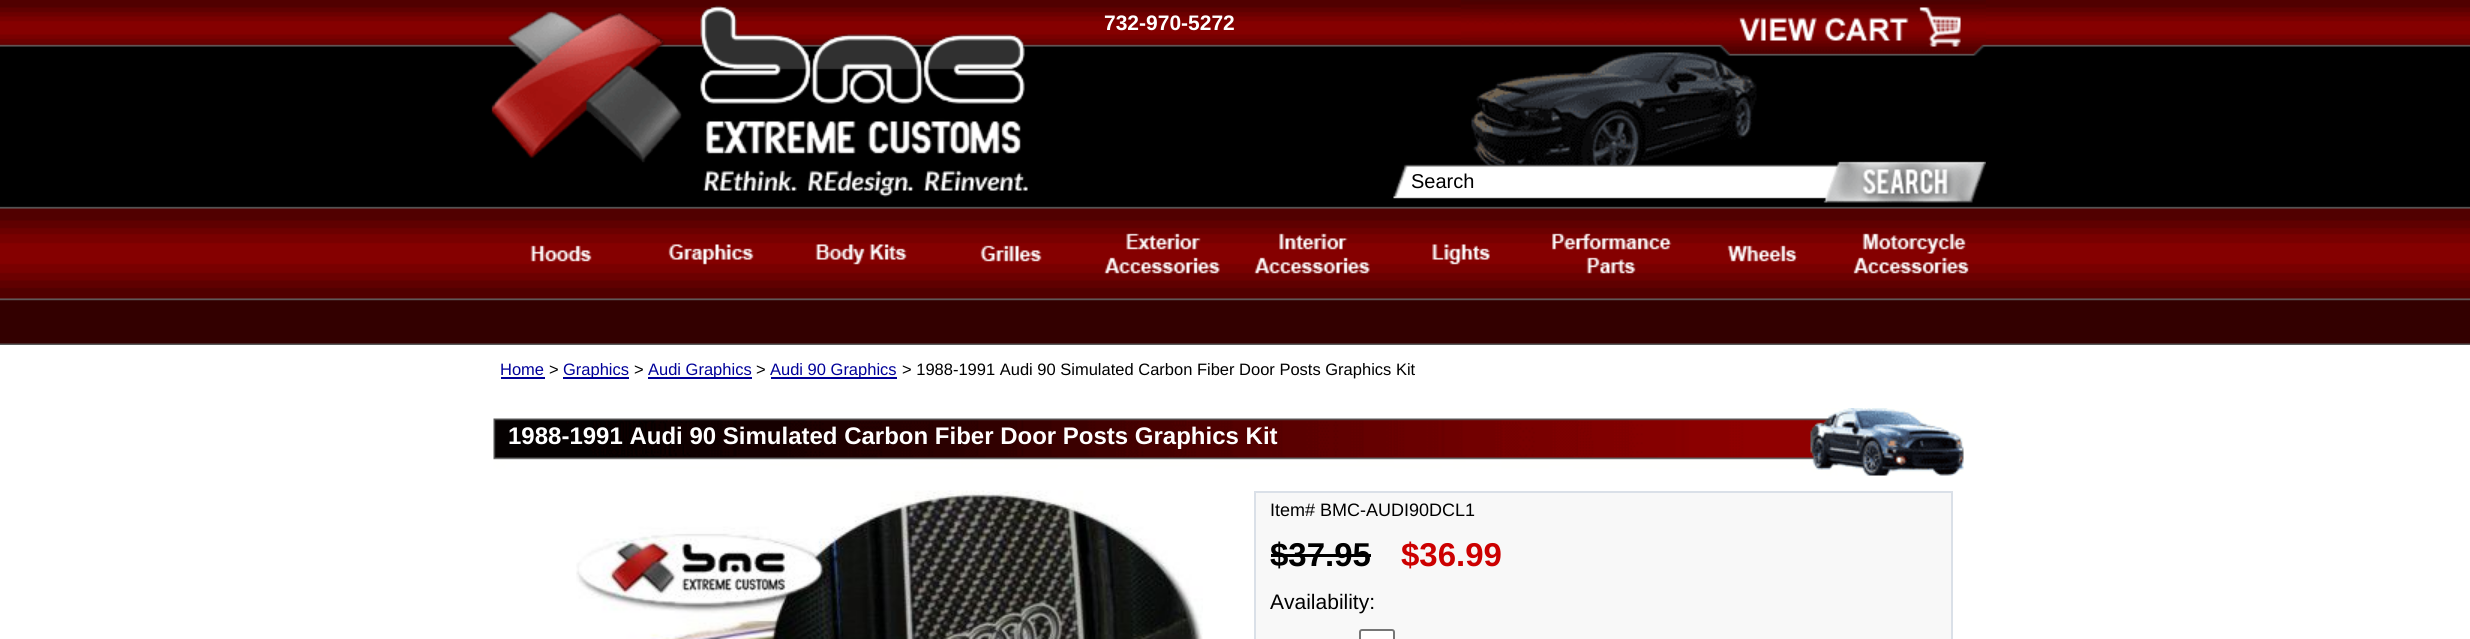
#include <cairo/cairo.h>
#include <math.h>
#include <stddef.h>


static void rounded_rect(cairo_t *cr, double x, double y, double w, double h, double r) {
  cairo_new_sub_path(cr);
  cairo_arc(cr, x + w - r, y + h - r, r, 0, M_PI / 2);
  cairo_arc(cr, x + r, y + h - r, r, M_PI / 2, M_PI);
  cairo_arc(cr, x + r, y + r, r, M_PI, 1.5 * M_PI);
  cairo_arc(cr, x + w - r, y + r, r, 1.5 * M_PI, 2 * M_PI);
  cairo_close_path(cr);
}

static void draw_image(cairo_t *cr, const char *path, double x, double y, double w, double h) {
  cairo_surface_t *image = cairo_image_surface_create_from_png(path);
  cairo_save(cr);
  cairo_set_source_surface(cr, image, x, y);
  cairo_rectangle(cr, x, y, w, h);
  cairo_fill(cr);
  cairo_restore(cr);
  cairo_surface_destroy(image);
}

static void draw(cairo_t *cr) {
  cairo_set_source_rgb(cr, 1, 1, 1);
  cairo_paint(cr);
  draw_image(cr, "images/1.png", 0, 0, 2470, 345);
  draw_image(cr, "images/2.png", 1461, 0, 525, 185);
  draw_image(cr, "images/3.png", 491, 5, 537, 192);
  draw_image(cr, "images/4.png", 1738, 7, 223, 40);
  draw_image(cr, "images/5.png", 1393, 161, 593, 42);
  draw_image(cr, "images/6.png", 530, 245, 62, 17);
  draw_image(cr, "images/7.png", 668, 244, 86, 21);
  draw_image(cr, "images/8.png", 815, 244, 92, 21);
  draw_image(cr, "images/9.png", 980, 245, 62, 17);
  draw_image(cr, "images/10.png", 1104, 233, 116, 41);
  draw_image(cr, "images/11.png", 1254, 233, 116, 41);
  draw_image(cr, "images/12.png", 1432, 244, 58, 21);
  draw_image(cr, "images/13.png", 1552, 233, 120, 41);
  draw_image(cr, "images/14.png", 1727, 245, 71, 17);
  draw_image(cr, "images/15.png", 1853, 233, 116, 41);
  cairo_set_source_rgb(cr, 0, 0, 153 / 255.0);
  cairo_rectangle(cr, 501, 377, 44, 2);
  cairo_fill(cr);
  cairo_rectangle(cr, 563, 377, 66, 2);
  cairo_fill(cr);
  cairo_rectangle(cr, 648, 377, 104, 2);
  cairo_fill(cr);
  cairo_rectangle(cr, 771, 377, 126, 2);
  cairo_fill(cr);
  draw_image(cr, "images/16.png", 493, 408, 1471, 68);
  draw_image(cr, "images/17.png", 576, 490, 627, 149);
  cairo_set_source_rgb(cr, 248 / 255.0, 248 / 255.0, 248 / 255.0);
  cairo_rectangle(cr, 1255, 492, 697, 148);
  cairo_fill_preserve(cr);
  cairo_set_source_rgb(cr, 218 / 255.0, 224 / 255.0, 232 / 255.0);
  cairo_stroke(cr);
  cairo_set_source_rgb(cr, 0, 0, 0);
  cairo_rectangle(cr, 1271, 554, 100, 3);
  cairo_fill(cr);
  cairo_set_source_rgb(cr, 1, 1, 1);
  rounded_rect(cr, 1360, 630, 34, 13, 2);
  cairo_fill_preserve(cr);
  cairo_set_source_rgb(cr, 118 / 255.0, 118 / 255.0, 118 / 255.0);
  cairo_stroke(cr);
  cairo_select_font_face(cr, "Liberation Sans", CAIRO_FONT_SLANT_NORMAL, CAIRO_FONT_WEIGHT_BOLD);
  cairo_set_font_size(cr, 21);
  cairo_set_source_rgb(cr, 1, 1, 1);
  cairo_move_to(cr, 1104, 30);
  cairo_show_text(cr, "732-970-5272");
  cairo_select_font_face(cr, "Liberation Sans", CAIRO_FONT_SLANT_NORMAL, CAIRO_FONT_WEIGHT_NORMAL);
  cairo_set_font_size(cr, 20);
  cairo_set_source_rgb(cr, 0, 0, 0);
  cairo_move_to(cr, 1411, 188);
  cairo_show_text(cr, "Search");
  cairo_set_font_size(cr, 16.5);
  cairo_set_source_rgb(cr, 0, 0, 153 / 255.0);
  cairo_move_to(cr, 500, 375);
  cairo_show_text(cr, "Home");
  cairo_set_source_rgb(cr, 0, 0, 0);
  cairo_move_to(cr, 549, 375);
  cairo_show_text(cr, ">");
  cairo_set_source_rgb(cr, 0, 0, 153 / 255.0);
  cairo_move_to(cr, 563, 375);
  cairo_show_text(cr, "Graphics");
  cairo_set_source_rgb(cr, 0, 0, 0);
  cairo_move_to(cr, 634, 375);
  cairo_show_text(cr, ">");
  cairo_set_source_rgb(cr, 0, 0, 153 / 255.0);
  cairo_move_to(cr, 648, 375);
  cairo_show_text(cr, "Audi Graphics");
  cairo_set_source_rgb(cr, 0, 0, 0);
  cairo_move_to(cr, 756, 375);
  cairo_show_text(cr, ">");
  cairo_set_source_rgb(cr, 0, 0, 153 / 255.0);
  cairo_move_to(cr, 770, 375);
  cairo_show_text(cr, "Audi 90 Graphics");
  cairo_set_source_rgb(cr, 0, 0, 0);
  cairo_move_to(cr, 902, 375);
  cairo_show_text(cr, "> 1988-1991 Audi 90 Simulated Carbon Fiber Door Posts Graphics Kit");
  cairo_select_font_face(cr, "Liberation Sans", CAIRO_FONT_SLANT_NORMAL, CAIRO_FONT_WEIGHT_BOLD);
  cairo_set_font_size(cr, 24);
  cairo_set_source_rgb(cr, 1, 1, 1);
  cairo_move_to(cr, 508, 444);
  cairo_show_text(cr, "1988-1991 Audi 90 Simulated Carbon Fiber Door Posts Graphics Kit");
  cairo_select_font_face(cr, "Liberation Sans", CAIRO_FONT_SLANT_NORMAL, CAIRO_FONT_WEIGHT_NORMAL);
  cairo_set_font_size(cr, 18);
  cairo_set_source_rgb(cr, 0, 0, 0);
  cairo_move_to(cr, 1270, 516);
  cairo_show_text(cr, "Item# BMC-AUDI90DCL1");
  cairo_select_font_face(cr, "Liberation Sans", CAIRO_FONT_SLANT_NORMAL, CAIRO_FONT_WEIGHT_BOLD);
  cairo_set_font_size(cr, 33);
  cairo_move_to(cr, 1270, 566);
  cairo_show_text(cr, "$37.95");
  cairo_set_source_rgb(cr, 204 / 255.0, 0, 0);
  cairo_move_to(cr, 1401, 566);
  cairo_show_text(cr, "$36.99");
  cairo_select_font_face(cr, "Liberation Sans", CAIRO_FONT_SLANT_NORMAL, CAIRO_FONT_WEIGHT_NORMAL);
  cairo_set_font_size(cr, 21);
  cairo_set_source_rgb(cr, 0, 0, 0);
  cairo_move_to(cr, 1270, 609);
  cairo_show_text(cr, "Availability:");
}

int main(void) {
  cairo_surface_t *surface = cairo_image_surface_create(CAIRO_FORMAT_RGB24, 2470, 639);
  cairo_t *cr = cairo_create(surface);
  cairo_font_options_t *options = cairo_font_options_create();
  cairo_font_options_set_hint_metrics(options, CAIRO_HINT_METRICS_OFF);
  cairo_font_options_set_hint_style(options, CAIRO_HINT_STYLE_NONE);
  cairo_set_font_options(cr, options);
  cairo_set_miter_limit(cr, 4);
  draw(cr);
  cairo_surface_write_to_png(surface, "out.png");
  cairo_font_options_destroy(options);
  cairo_destroy(cr);
  cairo_surface_destroy(surface);
  return 0;
}
